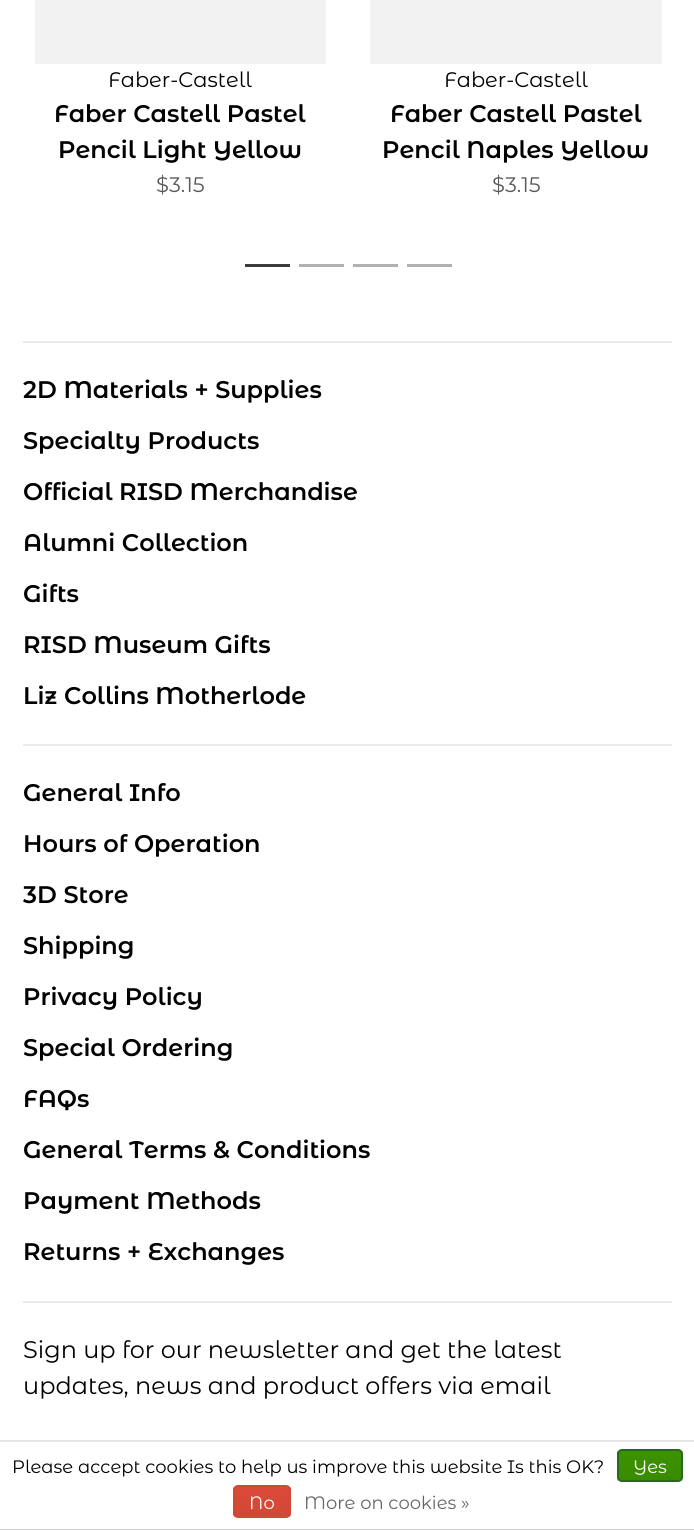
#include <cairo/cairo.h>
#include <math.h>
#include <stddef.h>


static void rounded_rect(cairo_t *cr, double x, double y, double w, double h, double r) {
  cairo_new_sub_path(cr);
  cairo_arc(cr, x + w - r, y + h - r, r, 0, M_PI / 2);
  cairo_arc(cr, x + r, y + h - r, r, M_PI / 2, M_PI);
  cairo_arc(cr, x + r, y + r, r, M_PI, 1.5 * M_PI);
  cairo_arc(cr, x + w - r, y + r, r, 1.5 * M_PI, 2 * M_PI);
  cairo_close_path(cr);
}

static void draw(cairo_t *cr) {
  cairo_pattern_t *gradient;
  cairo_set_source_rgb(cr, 1, 1, 1);
  cairo_paint(cr);
  cairo_set_source_rgb(cr, 242 / 255.0, 242 / 255.0, 242 / 255.0);
  cairo_rectangle(cr, 35, 0, 291, 64);
  cairo_fill(cr);
  cairo_rectangle(cr, 370, 0, 292, 64);
  cairo_fill(cr);
  cairo_set_source_rgb(cr, 59 / 255.0, 59 / 255.0, 59 / 255.0);
  cairo_rectangle(cr, 245, 264, 45, 3);
  cairo_fill(cr);
  cairo_set_source_rgb(cr, 177 / 255.0, 177 / 255.0, 177 / 255.0);
  cairo_rectangle(cr, 299, 264, 45, 3);
  cairo_fill(cr);
  cairo_rectangle(cr, 353, 264, 45, 3);
  cairo_fill(cr);
  cairo_rectangle(cr, 407, 264, 45, 3);
  cairo_fill(cr);
  cairo_set_source_rgb(cr, 235 / 255.0, 235 / 255.0, 235 / 255.0);
  cairo_rectangle(cr, 23, 341, 649, 2);
  cairo_fill(cr);
  cairo_rectangle(cr, 23, 744, 649, 2);
  cairo_fill(cr);
  cairo_rectangle(cr, 23, 1301, 649, 2);
  cairo_fill(cr);
  cairo_set_source_rgb(cr, 230 / 255.0, 230 / 255.0, 230 / 255.0);
  cairo_rectangle(cr, 0, 1440, 694, 2);
  cairo_fill(cr);
  cairo_set_source_rgb(cr, 204 / 255.0, 204 / 255.0, 204 / 255.0);
  cairo_rectangle(cr, 0, 1529, 694, 1);
  cairo_fill(cr);
  cairo_save(cr);
  rounded_rect(cr, 617, 1449, 66, 33, 5);
  cairo_clip(cr);
  gradient = cairo_pattern_create_linear(650, 1451, 650, 1481);
  cairo_pattern_add_color_stop_rgba(gradient, 0, 60 / 255.0, 147 / 255.0, 0, 1);
  cairo_pattern_add_color_stop_rgba(gradient, 1, 57 / 255.0, 138 / 255.0, 0, 1);
  cairo_set_source(cr, gradient);
  cairo_pattern_destroy(gradient);
  cairo_rectangle(cr, 617, 1451, 66, 30);
  cairo_fill(cr);
  cairo_restore(cr);
  rounded_rect(cr, 618, 1450, 64, 31, 4);
  cairo_set_source_rgb(cr, 41 / 255.0, 105 / 255.0, 29 / 255.0);
  cairo_stroke(cr);
  cairo_save(cr);
  rounded_rect(cr, 233, 1485, 58, 33, 5);
  cairo_clip(cr);
  gradient = cairo_pattern_create_linear(262, 1487, 262, 1517);
  cairo_pattern_add_color_stop_rgba(gradient, 0, 220 / 255.0, 74 / 255.0, 56 / 255.0, 1);
  cairo_pattern_add_color_stop_rgba(gradient, 1, 209 / 255.0, 72 / 255.0, 54 / 255.0, 1);
  cairo_set_source(cr, gradient);
  cairo_pattern_destroy(gradient);
  cairo_rectangle(cr, 233, 1487, 58, 30);
  cairo_fill(cr);
  cairo_restore(cr);
  rounded_rect(cr, 234, 1486, 56, 31, 4);
  cairo_set_source_rgb(cr, 209 / 255.0, 72 / 255.0, 54 / 255.0);
  cairo_stroke(cr);
  cairo_select_font_face(cr, "Montserrat Alternates", CAIRO_FONT_SLANT_NORMAL, CAIRO_FONT_WEIGHT_NORMAL);
  cairo_set_font_size(cr, 21);
  cairo_set_source_rgb(cr, 0, 0, 0);
  cairo_move_to(cr, 108, 87);
  cairo_show_text(cr, "Faber-Castell");
  cairo_select_font_face(cr, "Montserrat Alternates SemiBold", CAIRO_FONT_SLANT_NORMAL, CAIRO_FONT_WEIGHT_NORMAL);
  cairo_set_font_size(cr, 24);
  cairo_move_to(cr, 54, 122);
  cairo_show_text(cr, "Faber Castell Pastel");
  cairo_move_to(cr, 58, 158);
  cairo_show_text(cr, "Pencil Light Yellow");
  cairo_select_font_face(cr, "Montserrat Alternates", CAIRO_FONT_SLANT_NORMAL, CAIRO_FONT_WEIGHT_NORMAL);
  cairo_set_font_size(cr, 21);
  cairo_set_source_rgb(cr, 89 / 255.0, 89 / 255.0, 89 / 255.0);
  cairo_move_to(cr, 156, 192);
  cairo_show_text(cr, "$3.15");
  cairo_set_source_rgb(cr, 0, 0, 0);
  cairo_move_to(cr, 444, 87);
  cairo_show_text(cr, "Faber-Castell");
  cairo_select_font_face(cr, "Montserrat Alternates SemiBold", CAIRO_FONT_SLANT_NORMAL, CAIRO_FONT_WEIGHT_NORMAL);
  cairo_set_font_size(cr, 24);
  cairo_move_to(cr, 390, 122);
  cairo_show_text(cr, "Faber Castell Pastel");
  cairo_move_to(cr, 382, 158);
  cairo_show_text(cr, "Pencil Naples Yellow");
  cairo_select_font_face(cr, "Montserrat Alternates", CAIRO_FONT_SLANT_NORMAL, CAIRO_FONT_WEIGHT_NORMAL);
  cairo_set_font_size(cr, 21);
  cairo_set_source_rgb(cr, 89 / 255.0, 89 / 255.0, 89 / 255.0);
  cairo_move_to(cr, 492, 192);
  cairo_show_text(cr, "$3.15");
  cairo_select_font_face(cr, "Montserrat Alternates SemiBold", CAIRO_FONT_SLANT_NORMAL, CAIRO_FONT_WEIGHT_NORMAL);
  cairo_set_font_size(cr, 24);
  cairo_set_source_rgb(cr, 0, 0, 0);
  cairo_move_to(cr, 23, 398);
  cairo_show_text(cr, "2D Materials + Supplies");
  cairo_move_to(cr, 23, 449);
  cairo_show_text(cr, "Specialty Products");
  cairo_move_to(cr, 23, 500);
  cairo_show_text(cr, "Official RISD Merchandise");
  cairo_move_to(cr, 23, 551);
  cairo_show_text(cr, "Alumni Collection");
  cairo_move_to(cr, 23, 602);
  cairo_show_text(cr, "Gifts");
  cairo_move_to(cr, 23, 653);
  cairo_show_text(cr, "RISD Museum Gifts");
  cairo_move_to(cr, 23, 704);
  cairo_show_text(cr, "Liz Collins Motherlode");
  cairo_move_to(cr, 23, 801);
  cairo_show_text(cr, "General Info");
  cairo_move_to(cr, 23, 852);
  cairo_show_text(cr, "Hours of Operation");
  cairo_move_to(cr, 23, 903);
  cairo_show_text(cr, "3D Store");
  cairo_move_to(cr, 23, 954);
  cairo_show_text(cr, "Shipping");
  cairo_move_to(cr, 23, 1005);
  cairo_show_text(cr, "Privacy Policy");
  cairo_move_to(cr, 23, 1056);
  cairo_show_text(cr, "Special Ordering");
  cairo_move_to(cr, 23, 1107);
  cairo_show_text(cr, "FAQs");
  cairo_move_to(cr, 23, 1158);
  cairo_show_text(cr, "General Terms & Conditions");
  cairo_move_to(cr, 23, 1209);
  cairo_show_text(cr, "Payment Methods");
  cairo_move_to(cr, 23, 1260);
  cairo_show_text(cr, "Returns + Exchanges");
  cairo_select_font_face(cr, "Montserrat Alternates", CAIRO_FONT_SLANT_NORMAL, CAIRO_FONT_WEIGHT_NORMAL);
  cairo_move_to(cr, 23, 1358);
  cairo_show_text(cr, "Sign up for our newsletter and get the latest");
  cairo_move_to(cr, 23, 1394);
  cairo_show_text(cr, "updates, news and product offers via email");
  cairo_set_font_size(cr, 18);
  cairo_move_to(cr, 12, 1473);
  cairo_show_text(cr, "Please accept cookies to help us improve this website Is this OK?");
  cairo_set_source_rgb(cr, 1, 1, 1);
  cairo_move_to(cr, 633, 1473);
  cairo_show_text(cr, "Yes");
  cairo_move_to(cr, 249, 1509);
  cairo_show_text(cr, "No");
  cairo_set_source_rgb(cr, 102 / 255.0, 102 / 255.0, 102 / 255.0);
  cairo_move_to(cr, 304, 1509);
  cairo_show_text(cr, "More on cookies »");
}

int main(void) {
  cairo_surface_t *surface = cairo_image_surface_create(CAIRO_FORMAT_RGB24, 694, 1530);
  cairo_t *cr = cairo_create(surface);
  cairo_font_options_t *options = cairo_font_options_create();
  cairo_font_options_set_hint_metrics(options, CAIRO_HINT_METRICS_OFF);
  cairo_font_options_set_hint_style(options, CAIRO_HINT_STYLE_NONE);
  cairo_set_font_options(cr, options);
  cairo_set_miter_limit(cr, 4);
  draw(cr);
  cairo_surface_write_to_png(surface, "out.png");
  cairo_font_options_destroy(options);
  cairo_destroy(cr);
  cairo_surface_destroy(surface);
  return 0;
}
